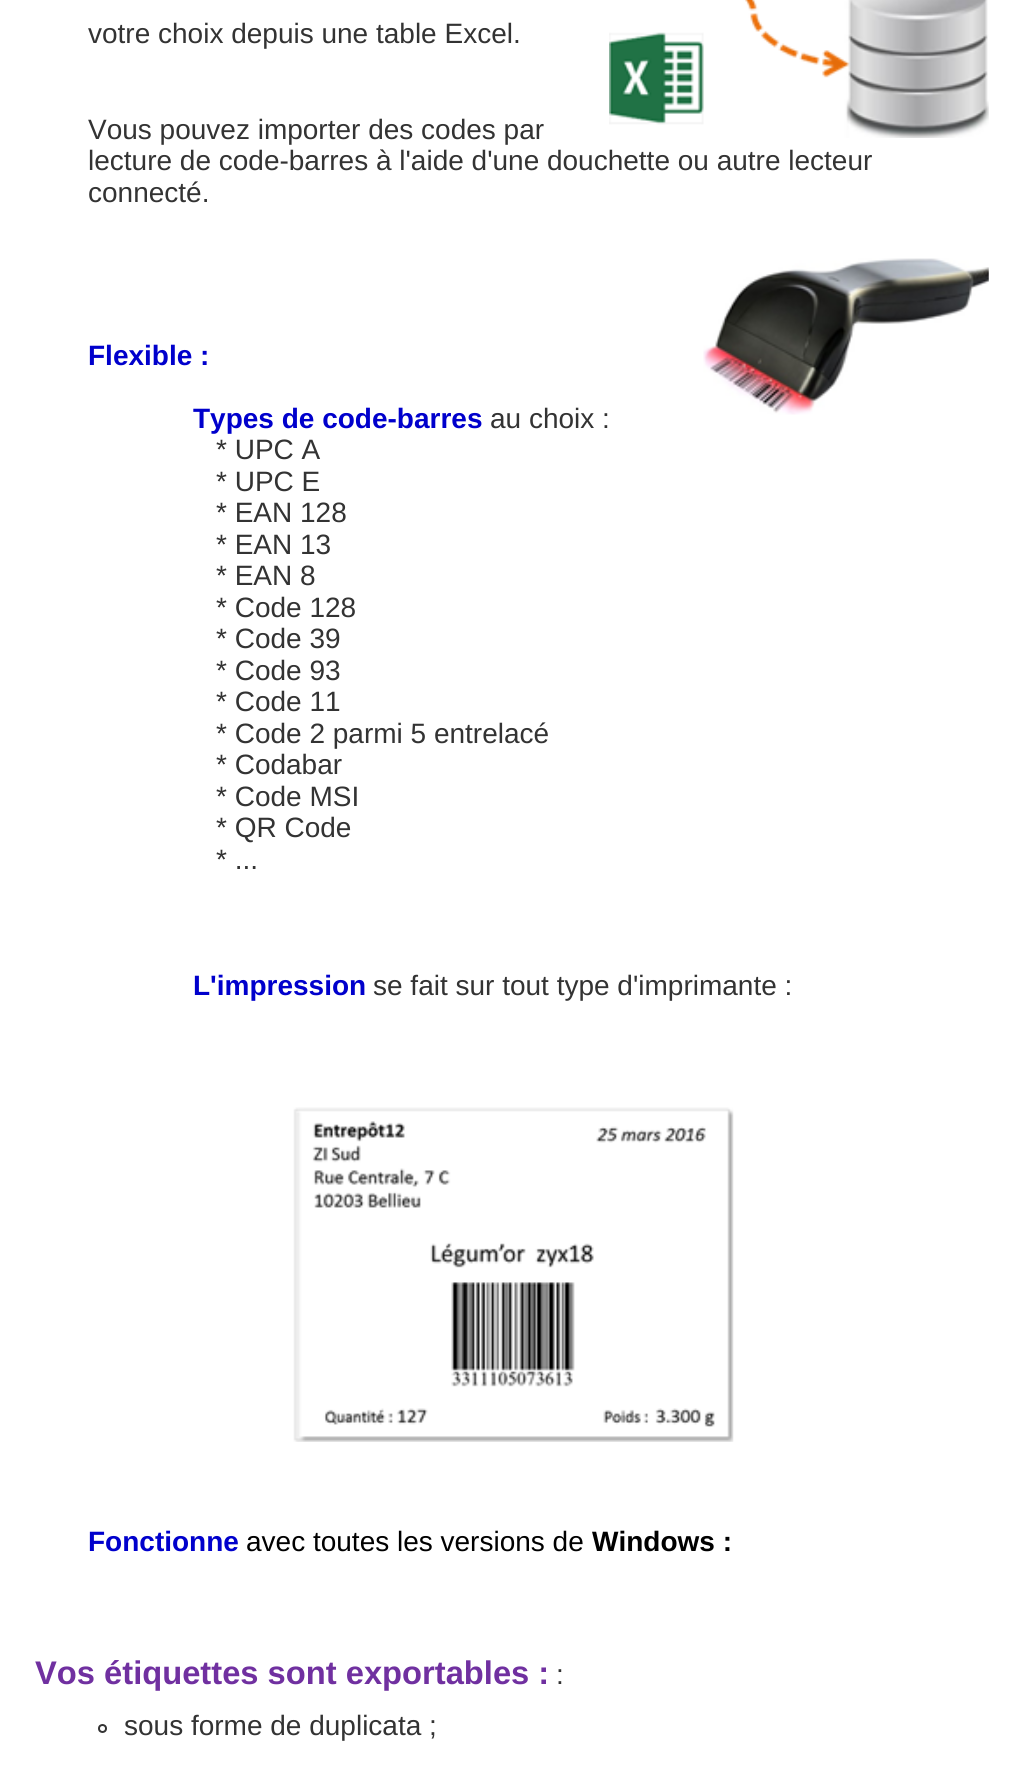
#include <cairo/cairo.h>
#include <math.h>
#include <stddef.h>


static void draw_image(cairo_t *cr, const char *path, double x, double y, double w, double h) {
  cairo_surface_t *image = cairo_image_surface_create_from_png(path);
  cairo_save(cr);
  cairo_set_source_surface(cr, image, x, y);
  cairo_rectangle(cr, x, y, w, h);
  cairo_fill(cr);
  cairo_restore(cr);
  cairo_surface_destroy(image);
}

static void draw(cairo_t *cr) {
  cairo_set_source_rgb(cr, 1, 1, 1);
  cairo_paint(cr);
  draw_image(cr, "images/1.png", 609, 0, 380, 138);
  draw_image(cr, "images/2.png", 703, 258, 286, 157);
  draw_image(cr, "images/3.png", 293, 1107, 441, 335);
  cairo_arc(cr, 102.5, 1728.5, 3.5, 0, 2 * M_PI);
  cairo_set_source_rgb(cr, 51 / 255.0, 51 / 255.0, 51 / 255.0);
  cairo_stroke(cr);
  cairo_select_font_face(cr, "Liberation Sans", CAIRO_FONT_SLANT_NORMAL, CAIRO_FONT_WEIGHT_NORMAL);
  cairo_set_font_size(cr, 28);
  cairo_move_to(cr, 88, 43);
  cairo_show_text(cr, "votre choix depuis une table Excel.");
  cairo_move_to(cr, 88, 139);
  cairo_show_text(cr, "Vous pouvez importer des codes par");
  cairo_move_to(cr, 88, 170);
  cairo_show_text(cr, "lecture de code-barres à l'aide d'une douchette ou autre lecteur");
  cairo_move_to(cr, 88, 202);
  cairo_show_text(cr, "connecté.");
  cairo_select_font_face(cr, "Liberation Sans", CAIRO_FONT_SLANT_NORMAL, CAIRO_FONT_WEIGHT_BOLD);
  cairo_set_source_rgb(cr, 0, 0, 204 / 255.0);
  cairo_move_to(cr, 88, 365);
  cairo_show_text(cr, "Flexible :");
  cairo_move_to(cr, 193, 428);
  cairo_show_text(cr, "Types de code-barres");
  cairo_select_font_face(cr, "Liberation Sans", CAIRO_FONT_SLANT_NORMAL, CAIRO_FONT_WEIGHT_NORMAL);
  cairo_set_source_rgb(cr, 51 / 255.0, 51 / 255.0, 51 / 255.0);
  cairo_move_to(cr, 490, 428);
  cairo_show_text(cr, "au choix :");
  cairo_move_to(cr, 216, 459);
  cairo_show_text(cr, "* UPC A");
  cairo_move_to(cr, 216, 491);
  cairo_show_text(cr, "* UPC E");
  cairo_move_to(cr, 216, 522);
  cairo_show_text(cr, "* EAN 128");
  cairo_move_to(cr, 216, 554);
  cairo_show_text(cr, "* EAN 13");
  cairo_move_to(cr, 216, 585);
  cairo_show_text(cr, "* EAN 8");
  cairo_move_to(cr, 216, 617);
  cairo_show_text(cr, "* Code 128");
  cairo_move_to(cr, 216, 648);
  cairo_show_text(cr, "* Code 39");
  cairo_move_to(cr, 216, 680);
  cairo_show_text(cr, "* Code 93");
  cairo_move_to(cr, 216, 711);
  cairo_show_text(cr, "* Code 11");
  cairo_move_to(cr, 216, 743);
  cairo_show_text(cr, "* Code 2 parmi 5 entrelacé");
  cairo_move_to(cr, 216, 774);
  cairo_show_text(cr, "* Codabar");
  cairo_move_to(cr, 216, 806);
  cairo_show_text(cr, "* Code MSI");
  cairo_move_to(cr, 216, 837);
  cairo_show_text(cr, "* QR Code");
  cairo_move_to(cr, 216, 869);
  cairo_show_text(cr, "* ...");
  cairo_select_font_face(cr, "Liberation Sans", CAIRO_FONT_SLANT_NORMAL, CAIRO_FONT_WEIGHT_BOLD);
  cairo_set_source_rgb(cr, 0, 0, 204 / 255.0);
  cairo_move_to(cr, 193, 995);
  cairo_show_text(cr, "L'impression");
  cairo_select_font_face(cr, "Liberation Sans", CAIRO_FONT_SLANT_NORMAL, CAIRO_FONT_WEIGHT_NORMAL);
  cairo_set_source_rgb(cr, 51 / 255.0, 51 / 255.0, 51 / 255.0);
  cairo_move_to(cr, 373, 995);
  cairo_show_text(cr, "se fait sur tout type d'imprimante :");
  cairo_select_font_face(cr, "Liberation Sans", CAIRO_FONT_SLANT_NORMAL, CAIRO_FONT_WEIGHT_BOLD);
  cairo_set_source_rgb(cr, 0, 0, 204 / 255.0);
  cairo_move_to(cr, 88, 1551);
  cairo_show_text(cr, "Fonctionne");
  cairo_select_font_face(cr, "Liberation Sans", CAIRO_FONT_SLANT_NORMAL, CAIRO_FONT_WEIGHT_NORMAL);
  cairo_set_source_rgb(cr, 0, 0, 0);
  cairo_move_to(cr, 246, 1551);
  cairo_show_text(cr, "avec toutes les versions de");
  cairo_select_font_face(cr, "Liberation Sans", CAIRO_FONT_SLANT_NORMAL, CAIRO_FONT_WEIGHT_BOLD);
  cairo_move_to(cr, 592, 1551);
  cairo_show_text(cr, "Windows :");
  cairo_set_font_size(cr, 32.7);
  cairo_set_source_rgb(cr, 112 / 255.0, 48 / 255.0, 160 / 255.0);
  cairo_move_to(cr, 35, 1684);
  cairo_show_text(cr, "Vos étiquettes sont exportables :");
  cairo_select_font_face(cr, "Liberation Sans", CAIRO_FONT_SLANT_NORMAL, CAIRO_FONT_WEIGHT_NORMAL);
  cairo_set_font_size(cr, 28);
  cairo_set_source_rgb(cr, 51 / 255.0, 51 / 255.0, 51 / 255.0);
  cairo_move_to(cr, 556, 1684);
  cairo_show_text(cr, ":");
  cairo_move_to(cr, 124, 1735);
  cairo_show_text(cr, "sous forme de duplicata ;");
}

int main(void) {
  cairo_surface_t *surface = cairo_image_surface_create(CAIRO_FORMAT_RGB24, 1023, 1783);
  cairo_t *cr = cairo_create(surface);
  cairo_font_options_t *options = cairo_font_options_create();
  cairo_font_options_set_hint_metrics(options, CAIRO_HINT_METRICS_OFF);
  cairo_font_options_set_hint_style(options, CAIRO_HINT_STYLE_NONE);
  cairo_set_font_options(cr, options);
  cairo_set_miter_limit(cr, 4);
  draw(cr);
  cairo_surface_write_to_png(surface, "out.png");
  cairo_font_options_destroy(options);
  cairo_destroy(cr);
  cairo_surface_destroy(surface);
  return 0;
}
